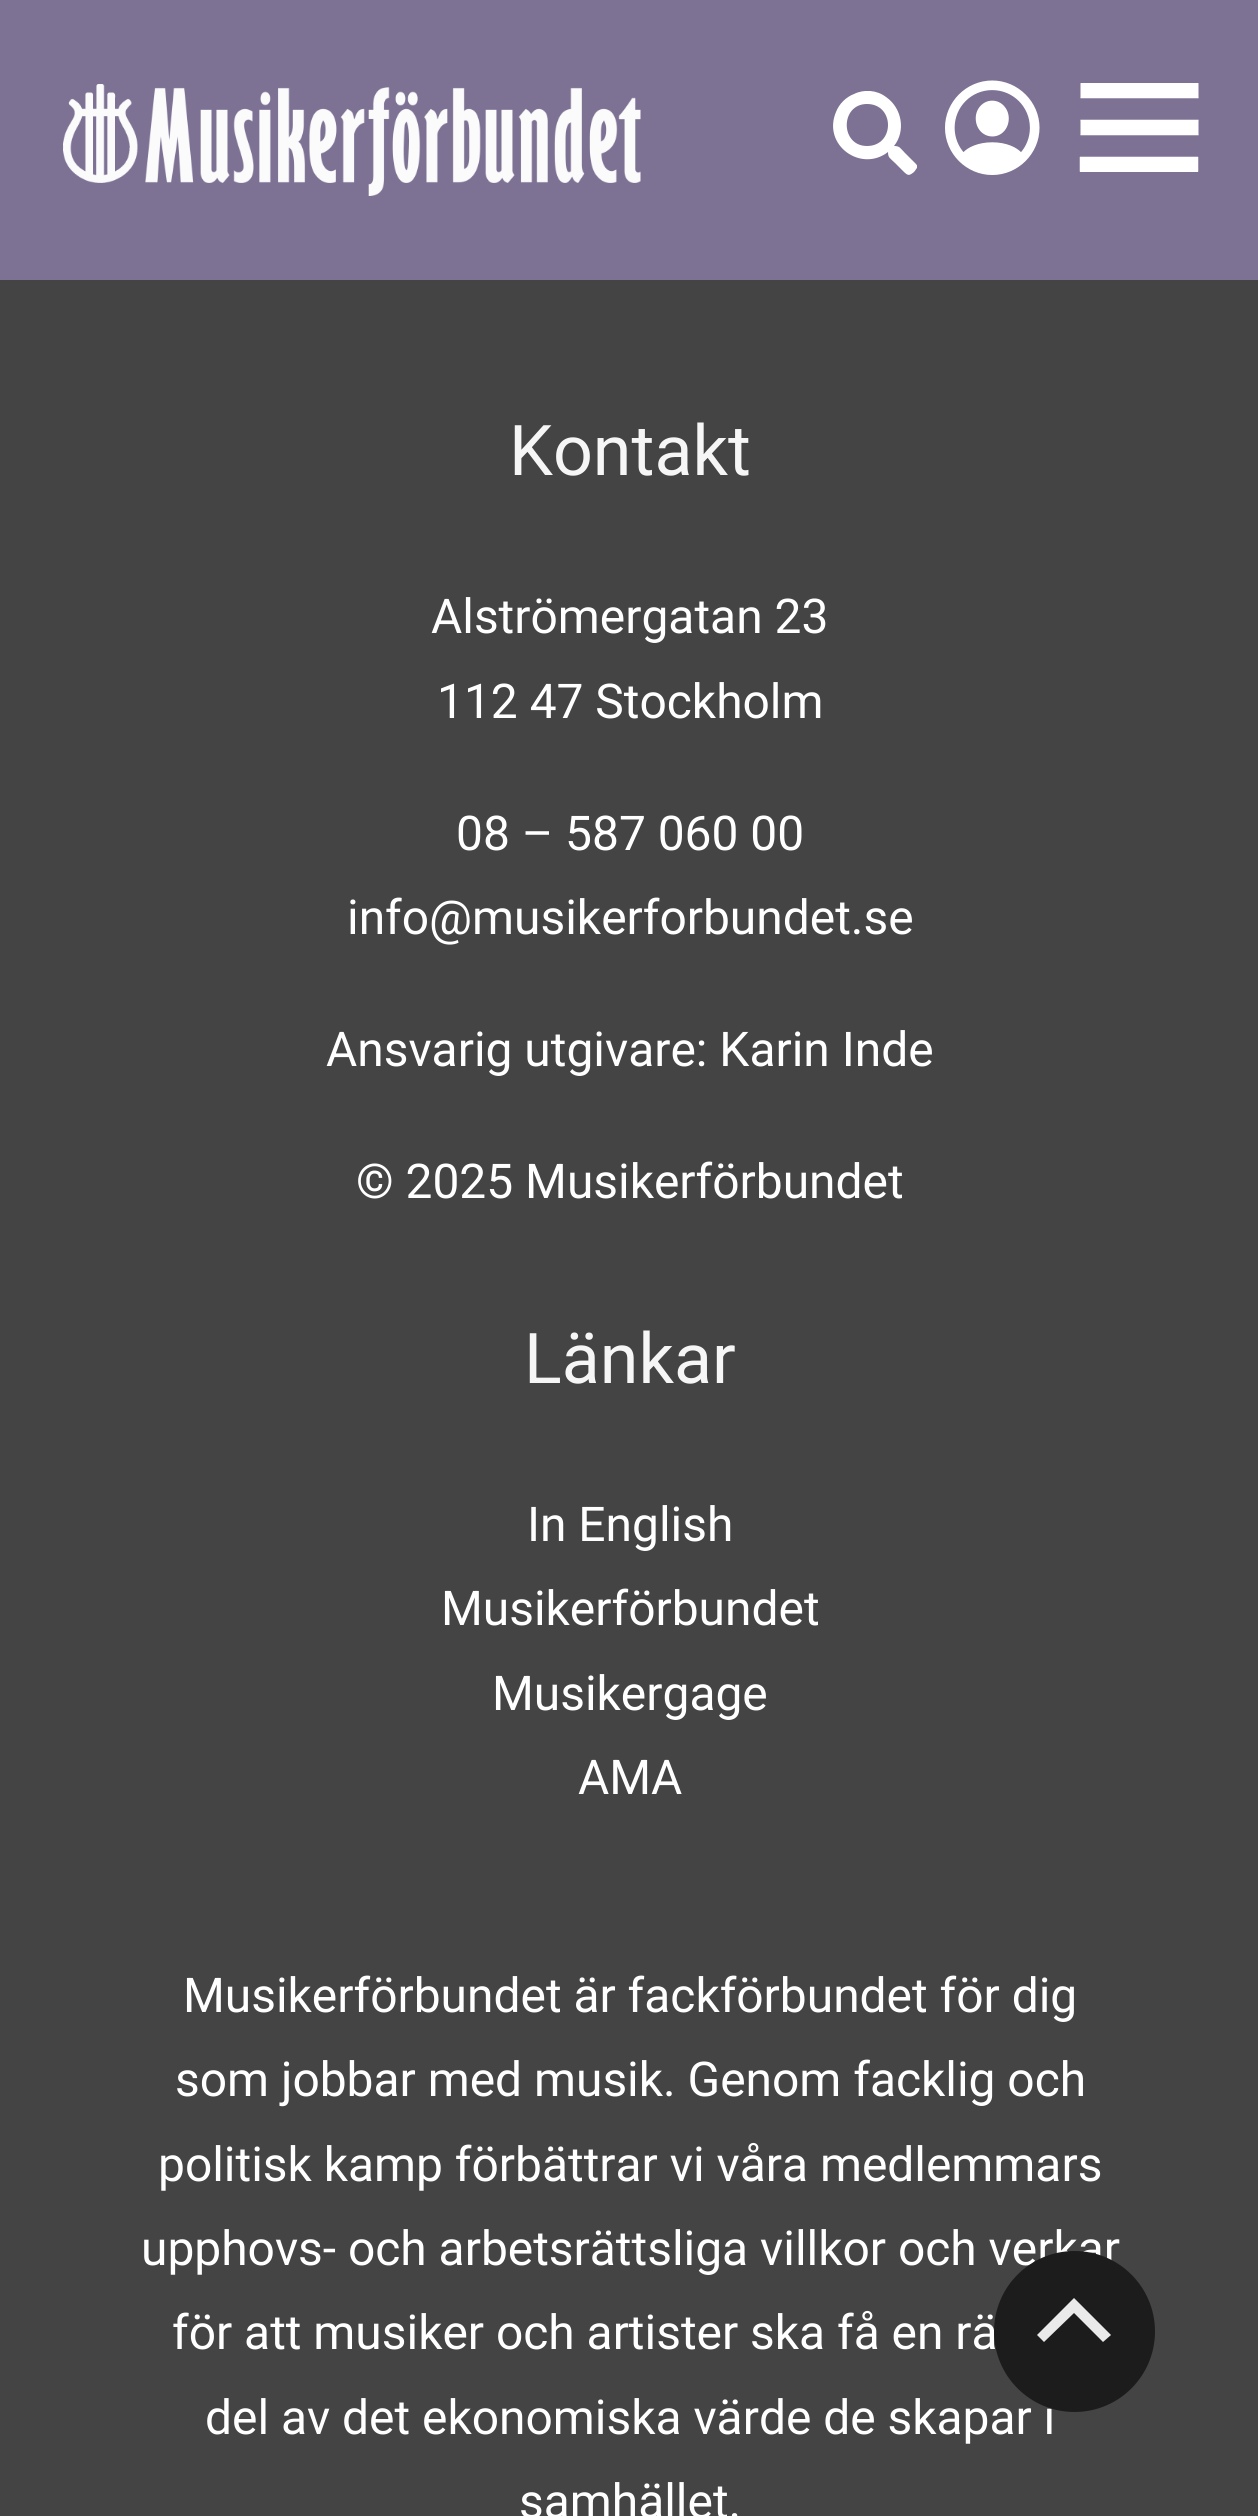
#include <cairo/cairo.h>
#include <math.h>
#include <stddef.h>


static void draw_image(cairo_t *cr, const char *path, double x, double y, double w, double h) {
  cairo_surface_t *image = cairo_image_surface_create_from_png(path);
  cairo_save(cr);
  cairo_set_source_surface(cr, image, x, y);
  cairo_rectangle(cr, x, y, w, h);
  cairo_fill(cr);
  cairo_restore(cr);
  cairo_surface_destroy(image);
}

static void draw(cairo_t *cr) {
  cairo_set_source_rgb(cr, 68 / 255.0, 68 / 255.0, 68 / 255.0);
  cairo_paint(cr);
  cairo_set_source_rgb(cr, 125 / 255.0, 113 / 255.0, 148 / 255.0);
  cairo_rectangle(cr, 0, 0, 1258, 280);
  cairo_fill(cr);
  draw_image(cr, "images/1.png", 63, 84, 578, 112);
  cairo_save(cr);
  cairo_rectangle(cr, 833, 91, 84, 84);
  cairo_clip(cr);
  cairo_set_source_rgb(cr, 1, 1, 1);
  cairo_new_path(cr);
  cairo_move_to(cr, 916, 164);
  cairo_line_to(cr, 905, 153);
  cairo_curve_to(cr, 900, 148, 900, 146, 894, 146);
  cairo_curve_to(cr, 906, 131, 902, 108, 886, 97);
  cairo_curve_to(cr, 877, 90, 864, 89, 854, 94);
  cairo_curve_to(cr, 846, 97, 839, 104, 836, 112);
  cairo_curve_to(cr, 822, 145, 861, 173, 888, 152);
  cairo_curve_to(cr, 888, 158, 890, 158, 895, 163);
  cairo_line_to(cr, 903, 171);
  cairo_curve_to(cr, 908, 176, 909, 176, 914, 172);
  cairo_curve_to(cr, 916, 169, 919, 167, 916, 164);
  cairo_close_path(cr);
  cairo_move_to(cr, 867, 146);
  cairo_curve_to(cr, 840, 146, 840, 104, 867, 104);
  cairo_curve_to(cr, 895, 104, 895, 146, 867, 146);
  cairo_close_path(cr);
  cairo_fill(cr);
  cairo_restore(cr);
  draw_image(cr, "images/2.png", 945, 80, 95, 95);
  cairo_set_source_rgb(cr, 1, 1, 1);
  cairo_rectangle(cr, 1080, 157, 118, 15);
  cairo_fill(cr);
  cairo_new_path(cr);
  cairo_move_to(cr, 1080, 157);
  cairo_line_to(cr, 1198, 157);
  cairo_line_to(cr, 1198, 171.5);
  cairo_line_to(cr, 1080, 171.5);
  cairo_close_path(cr);
  cairo_set_line_width(cr, 0.5);
  cairo_set_line_join(cr, CAIRO_LINE_JOIN_ROUND);
  cairo_stroke(cr);
  cairo_rectangle(cr, 1081, 120, 117, 15);
  cairo_fill(cr);
  cairo_new_path(cr);
  cairo_move_to(cr, 1080.5, 120);
  cairo_line_to(cr, 1198.5, 120);
  cairo_line_to(cr, 1198.5, 135);
  cairo_line_to(cr, 1080.5, 135);
  cairo_close_path(cr);
  cairo_stroke(cr);
  cairo_rectangle(cr, 1081, 83, 117, 15);
  cairo_fill(cr);
  cairo_new_path(cr);
  cairo_move_to(cr, 1080.5, 83.5);
  cairo_line_to(cr, 1198.5, 83.5);
  cairo_line_to(cr, 1198.5, 98);
  cairo_line_to(cr, 1080.5, 98);
  cairo_close_path(cr);
  cairo_stroke(cr);
  cairo_select_font_face(cr, "Roboto", CAIRO_FONT_SLANT_NORMAL, CAIRO_FONT_WEIGHT_NORMAL);
  cairo_set_font_size(cr, 70);
  cairo_set_source_rgb(cr, 246 / 255.0, 246 / 255.0, 246 / 255.0);
  cairo_move_to(cr, 509, 475);
  cairo_show_text(cr, "Kontakt");
  cairo_set_font_size(cr, 47.9);
  cairo_set_source_rgb(cr, 1, 1, 1);
  cairo_move_to(cr, 431, 633);
  cairo_show_text(cr, "Alströmergatan 23");
  cairo_move_to(cr, 437, 718);
  cairo_show_text(cr, "112 47 Stockholm");
  cairo_move_to(cr, 456, 850);
  cairo_show_text(cr, "08 – 587 060 00");
  cairo_move_to(cr, 347, 934);
  cairo_show_text(cr, "info@musikerforbundet.se");
  cairo_move_to(cr, 326, 1066);
  cairo_show_text(cr, "Ansvarig utgivare: Karin Inde");
  cairo_move_to(cr, 356, 1198);
  cairo_show_text(cr, "© 2025 Musikerförbundet");
  cairo_set_font_size(cr, 70);
  cairo_set_source_rgb(cr, 246 / 255.0, 246 / 255.0, 246 / 255.0);
  cairo_move_to(cr, 524, 1383);
  cairo_show_text(cr, "Länkar");
  cairo_set_font_size(cr, 47.9);
  cairo_set_source_rgb(cr, 1, 1, 1);
  cairo_move_to(cr, 527, 1541);
  cairo_show_text(cr, "In English");
  cairo_move_to(cr, 441, 1625);
  cairo_show_text(cr, "Musikerförbundet");
  cairo_move_to(cr, 492, 1710);
  cairo_show_text(cr, "Musikergage");
  cairo_move_to(cr, 578, 1794);
  cairo_show_text(cr, "AMA");
  cairo_move_to(cr, 183, 2012);
  cairo_show_text(cr, "Musikerförbundet är fackförbundet för dig");
  cairo_move_to(cr, 175, 2096);
  cairo_show_text(cr, "som jobbar med musik. Genom facklig och");
  cairo_move_to(cr, 158, 2181);
  cairo_show_text(cr, "politisk kamp förbättrar vi våra medlemmars");
  cairo_move_to(cr, 141, 2265);
  cairo_show_text(cr, "upphovs- och arbetsrättsliga villkor och verkar");
  cairo_move_to(cr, 172, 2349);
  cairo_show_text(cr, "för att musiker och artister ska få en rä");
  cairo_move_to(cr, 205, 2434);
  cairo_show_text(cr, "del av det ekonomiska värde de skapar i");
  cairo_move_to(cr, 519, 2518);
  cairo_show_text(cr, "samhället.");
  cairo_set_source_rgb(cr, 28 / 255.0, 28 / 255.0, 28 / 255.0);
  cairo_new_path(cr);
  cairo_arc(cr, 1074.5, 2331.5, 80.5, 0, 2 * M_PI);
  cairo_fill(cr);
  cairo_set_source_rgb(cr, 234 / 255.0, 234 / 255.0, 234 / 255.0);
  cairo_new_path(cr);
  cairo_move_to(cr, 1111, 2335);
  cairo_line_to(cr, 1074, 2298);
  cairo_line_to(cr, 1037, 2335);
  cairo_line_to(cr, 1044, 2342);
  cairo_line_to(cr, 1074, 2313);
  cairo_line_to(cr, 1103, 2342);
  cairo_close_path(cr);
  cairo_fill(cr);
}

int main(void) {
  cairo_surface_t *surface = cairo_image_surface_create(CAIRO_FORMAT_RGB24, 1258, 2516);
  cairo_t *cr = cairo_create(surface);
  cairo_font_options_t *options = cairo_font_options_create();
  cairo_font_options_set_hint_metrics(options, CAIRO_HINT_METRICS_OFF);
  cairo_font_options_set_hint_style(options, CAIRO_HINT_STYLE_NONE);
  cairo_set_font_options(cr, options);
  cairo_set_miter_limit(cr, 4);
  draw(cr);
  cairo_surface_write_to_png(surface, "out.png");
  cairo_font_options_destroy(options);
  cairo_destroy(cr);
  cairo_surface_destroy(surface);
  return 0;
}
